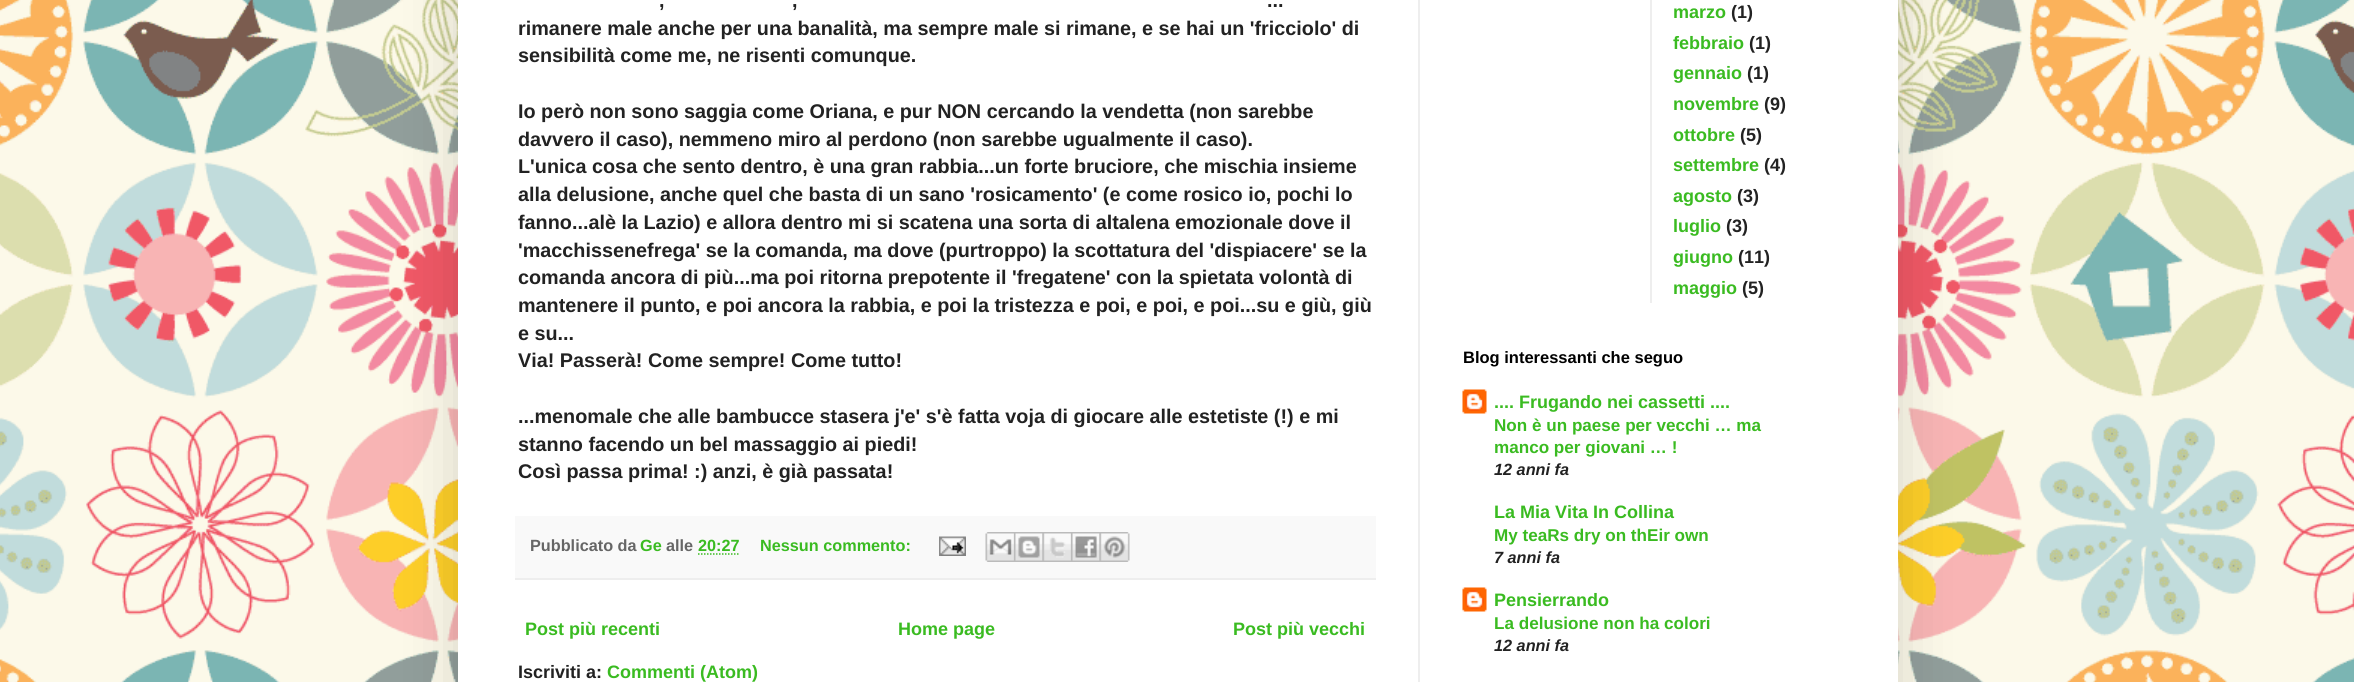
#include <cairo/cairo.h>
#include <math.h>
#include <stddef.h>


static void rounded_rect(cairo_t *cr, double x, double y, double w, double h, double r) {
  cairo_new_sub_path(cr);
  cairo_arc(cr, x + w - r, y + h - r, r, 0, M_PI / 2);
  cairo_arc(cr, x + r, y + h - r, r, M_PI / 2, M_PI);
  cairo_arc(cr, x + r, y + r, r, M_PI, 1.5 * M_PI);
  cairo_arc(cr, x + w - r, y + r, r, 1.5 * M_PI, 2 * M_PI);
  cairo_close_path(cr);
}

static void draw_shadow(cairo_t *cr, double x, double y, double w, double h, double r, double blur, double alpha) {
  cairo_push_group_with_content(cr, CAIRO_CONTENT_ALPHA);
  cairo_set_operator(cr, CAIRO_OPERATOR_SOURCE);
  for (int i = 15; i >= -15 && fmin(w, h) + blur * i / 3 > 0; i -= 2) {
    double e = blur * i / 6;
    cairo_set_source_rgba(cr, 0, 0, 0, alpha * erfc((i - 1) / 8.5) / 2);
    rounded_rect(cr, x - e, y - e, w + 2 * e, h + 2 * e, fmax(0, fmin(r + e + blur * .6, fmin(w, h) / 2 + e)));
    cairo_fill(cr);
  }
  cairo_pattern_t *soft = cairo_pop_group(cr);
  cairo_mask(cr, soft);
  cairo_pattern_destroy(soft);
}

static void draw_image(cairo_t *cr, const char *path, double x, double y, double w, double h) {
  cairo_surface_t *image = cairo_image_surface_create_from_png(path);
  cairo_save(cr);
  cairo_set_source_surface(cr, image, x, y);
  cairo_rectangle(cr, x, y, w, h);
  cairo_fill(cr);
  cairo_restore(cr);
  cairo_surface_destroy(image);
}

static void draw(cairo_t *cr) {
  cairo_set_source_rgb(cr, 1, 1, 1);
  cairo_paint(cr);
  draw_image(cr, "images/1.png", 0, 0, 2354, 682);
  cairo_set_source_rgb(cr, 0, 0, 0);
  draw_shadow(cr, 458, -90, 1440, 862, 0, 30, 0.15);
  cairo_set_source_rgb(cr, 1, 1, 1);
  cairo_rectangle(cr, 458, 0, 1440, 682);
  cairo_fill(cr);
  cairo_set_source_rgb(cr, 238 / 255.0, 238 / 255.0, 238 / 255.0);
  cairo_rectangle(cr, 1418, 0, 2, 682);
  cairo_fill(cr);
  cairo_set_source_rgb(cr, 249 / 255.0, 249 / 255.0, 249 / 255.0);
  cairo_rectangle(cr, 515, 516, 861, 62);
  cairo_fill(cr);
  cairo_set_source_rgb(cr, 238 / 255.0, 238 / 255.0, 238 / 255.0);
  cairo_rectangle(cr, 515, 578, 861, 2);
  cairo_fill(cr);
  cairo_new_path(cr);
  cairo_move_to(cr, 698, 554);
  cairo_line_to(cr, 739.5, 554);
  cairo_set_source_rgb(cr, 58 / 255.0, 187 / 255.0, 33 / 255.0);
  cairo_set_line_width(cr, 1.5);
  cairo_set_dash(cr, (double[]){1.5, 1.5}, 2, 0);
  cairo_stroke(cr);
  draw_image(cr, "images/2.png", 939, 536, 27, 20);
  draw_image(cr, "images/3.png", 985, 532, 29, 30);
  draw_image(cr, "images/4.png", 1014, 532, 29, 30);
  draw_image(cr, "images/5.png", 1042, 532, 29, 30);
  draw_image(cr, "images/6.png", 1071, 532, 29, 30);
  draw_image(cr, "images/7.png", 1099, 532, 31, 30);
  cairo_set_source_rgb(cr, 238 / 255.0, 238 / 255.0, 238 / 255.0);
  cairo_rectangle(cr, 1650, 0, 2, 303);
  cairo_fill(cr);
  draw_image(cr, "images/8.png", 1462, 389, 25, 25);
  draw_image(cr, "images/8.png", 1462, 587, 25, 25);
  cairo_select_font_face(cr, "Liberation Sans", CAIRO_FONT_SLANT_NORMAL, CAIRO_FONT_WEIGHT_BOLD);
  cairo_set_font_size(cr, 19.8);
  cairo_set_source_rgb(cr, 34 / 255.0, 34 / 255.0, 34 / 255.0);
  cairo_move_to(cr, 659, 7);
  cairo_show_text(cr, ",");
  cairo_move_to(cr, 792, 7);
  cairo_show_text(cr, ",");
  cairo_move_to(cr, 1267, 7);
  cairo_show_text(cr, "...");
  cairo_move_to(cr, 518, 35);
  cairo_show_text(cr, "rimanere male anche per una banalità, ma sempre male si rimane, e se hai un 'fricciolo' di");
  cairo_move_to(cr, 518, 62);
  cairo_show_text(cr, "sensibilità come me, ne risenti comunque.");
  cairo_move_to(cr, 518, 118);
  cairo_show_text(cr, "Io però non sono saggia come Oriana, e pur NON cercando la vendetta (non sarebbe");
  cairo_move_to(cr, 518, 146);
  cairo_show_text(cr, "davvero il caso), nemmeno miro al perdono (non sarebbe ugualmente il caso).");
  cairo_move_to(cr, 518, 173);
  cairo_show_text(cr, "L'unica cosa che sento dentro, è una gran rabbia...un forte bruciore, che mischia insieme");
  cairo_move_to(cr, 518, 201);
  cairo_show_text(cr, "alla delusione, anche quel che basta di un sano 'rosicamento' (e come rosico io, pochi lo");
  cairo_move_to(cr, 518, 229);
  cairo_show_text(cr, "fanno...alè la Lazio) e allora dentro mi si scatena una sorta di altalena emozionale dove il");
  cairo_move_to(cr, 518, 257);
  cairo_show_text(cr, "'macchissenefrega' se la comanda, ma dove (purtroppo) la scottatura del 'dispiacere' se la");
  cairo_move_to(cr, 518, 284);
  cairo_show_text(cr, "comanda ancora di più...ma poi ritorna prepotente il 'fregatene' con la spietata volontà di");
  cairo_move_to(cr, 518, 312);
  cairo_show_text(cr, "mantenere il punto, e poi ancora la rabbia, e poi la tristezza e poi, e poi, e poi...su e giù, giù");
  cairo_move_to(cr, 518, 340);
  cairo_show_text(cr, "e su...");
  cairo_move_to(cr, 518, 367);
  cairo_show_text(cr, "Via! Passerà! Come sempre! Come tutto!");
  cairo_move_to(cr, 518, 423);
  cairo_show_text(cr, "...menomale che alle bambucce stasera j'e' s'è fatta voja di giocare alle estetiste (!) e mi");
  cairo_move_to(cr, 518, 451);
  cairo_show_text(cr, "stanno facendo un bel massaggio ai piedi!");
  cairo_move_to(cr, 518, 478);
  cairo_show_text(cr, "Così passa prima! :) anzi, è già passata!");
  cairo_set_font_size(cr, 16.25);
  cairo_set_source_rgb(cr, 102 / 255.0, 102 / 255.0, 102 / 255.0);
  cairo_move_to(cr, 530, 551);
  cairo_show_text(cr, "Pubblicato da");
  cairo_set_source_rgb(cr, 58 / 255.0, 187 / 255.0, 33 / 255.0);
  cairo_move_to(cr, 640, 551);
  cairo_show_text(cr, "Ge");
  cairo_set_source_rgb(cr, 102 / 255.0, 102 / 255.0, 102 / 255.0);
  cairo_move_to(cr, 666, 551);
  cairo_show_text(cr, "alle");
  cairo_set_source_rgb(cr, 58 / 255.0, 187 / 255.0, 33 / 255.0);
  cairo_move_to(cr, 698, 551);
  cairo_show_text(cr, "20:27");
  cairo_move_to(cr, 760, 551);
  cairo_show_text(cr, "Nessun commento:");
  cairo_set_font_size(cr, 18);
  cairo_move_to(cr, 525, 635);
  cairo_show_text(cr, "Post più recenti");
  cairo_move_to(cr, 898, 635);
  cairo_show_text(cr, "Home page");
  cairo_move_to(cr, 1233, 635);
  cairo_show_text(cr, "Post più vecchi");
  cairo_set_source_rgb(cr, 34 / 255.0, 34 / 255.0, 34 / 255.0);
  cairo_move_to(cr, 518, 678);
  cairo_show_text(cr, "Iscriviti a:");
  cairo_set_source_rgb(cr, 58 / 255.0, 187 / 255.0, 33 / 255.0);
  cairo_move_to(cr, 607, 678);
  cairo_show_text(cr, "Commenti (Atom)");
  cairo_move_to(cr, 1673, 18);
  cairo_show_text(cr, "marzo");
  cairo_set_source_rgb(cr, 34 / 255.0, 34 / 255.0, 34 / 255.0);
  cairo_move_to(cr, 1731, 18);
  cairo_show_text(cr, "(1)");
  cairo_set_source_rgb(cr, 58 / 255.0, 187 / 255.0, 33 / 255.0);
  cairo_move_to(cr, 1673, 49);
  cairo_show_text(cr, "febbraio");
  cairo_set_source_rgb(cr, 34 / 255.0, 34 / 255.0, 34 / 255.0);
  cairo_move_to(cr, 1749, 49);
  cairo_show_text(cr, "(1)");
  cairo_set_source_rgb(cr, 58 / 255.0, 187 / 255.0, 33 / 255.0);
  cairo_move_to(cr, 1673, 79);
  cairo_show_text(cr, "gennaio");
  cairo_set_source_rgb(cr, 34 / 255.0, 34 / 255.0, 34 / 255.0);
  cairo_move_to(cr, 1747, 79);
  cairo_show_text(cr, "(1)");
  cairo_set_source_rgb(cr, 58 / 255.0, 187 / 255.0, 33 / 255.0);
  cairo_move_to(cr, 1673, 110);
  cairo_show_text(cr, "novembre");
  cairo_set_source_rgb(cr, 34 / 255.0, 34 / 255.0, 34 / 255.0);
  cairo_move_to(cr, 1764, 110);
  cairo_show_text(cr, "(9)");
  cairo_set_source_rgb(cr, 58 / 255.0, 187 / 255.0, 33 / 255.0);
  cairo_move_to(cr, 1673, 141);
  cairo_show_text(cr, "ottobre");
  cairo_set_source_rgb(cr, 34 / 255.0, 34 / 255.0, 34 / 255.0);
  cairo_move_to(cr, 1740, 141);
  cairo_show_text(cr, "(5)");
  cairo_set_source_rgb(cr, 58 / 255.0, 187 / 255.0, 33 / 255.0);
  cairo_move_to(cr, 1673, 171);
  cairo_show_text(cr, "settembre");
  cairo_set_source_rgb(cr, 34 / 255.0, 34 / 255.0, 34 / 255.0);
  cairo_move_to(cr, 1764, 171);
  cairo_show_text(cr, "(4)");
  cairo_set_source_rgb(cr, 58 / 255.0, 187 / 255.0, 33 / 255.0);
  cairo_move_to(cr, 1673, 202);
  cairo_show_text(cr, "agosto");
  cairo_set_source_rgb(cr, 34 / 255.0, 34 / 255.0, 34 / 255.0);
  cairo_move_to(cr, 1737, 202);
  cairo_show_text(cr, "(3)");
  cairo_set_source_rgb(cr, 58 / 255.0, 187 / 255.0, 33 / 255.0);
  cairo_move_to(cr, 1673, 232);
  cairo_show_text(cr, "luglio");
  cairo_set_source_rgb(cr, 34 / 255.0, 34 / 255.0, 34 / 255.0);
  cairo_move_to(cr, 1726, 232);
  cairo_show_text(cr, "(3)");
  cairo_set_source_rgb(cr, 58 / 255.0, 187 / 255.0, 33 / 255.0);
  cairo_move_to(cr, 1673, 263);
  cairo_show_text(cr, "giugno");
  cairo_set_source_rgb(cr, 34 / 255.0, 34 / 255.0, 34 / 255.0);
  cairo_move_to(cr, 1738, 263);
  cairo_show_text(cr, "(11)");
  cairo_set_source_rgb(cr, 58 / 255.0, 187 / 255.0, 33 / 255.0);
  cairo_move_to(cr, 1673, 294);
  cairo_show_text(cr, "maggio");
  cairo_set_source_rgb(cr, 34 / 255.0, 34 / 255.0, 34 / 255.0);
  cairo_move_to(cr, 1742, 294);
  cairo_show_text(cr, "(5)");
  cairo_set_font_size(cr, 16.5);
  cairo_set_source_rgb(cr, 0, 0, 0);
  cairo_move_to(cr, 1463, 363);
  cairo_show_text(cr, "Blog interessanti che seguo");
  cairo_set_font_size(cr, 18);
  cairo_set_source_rgb(cr, 58 / 255.0, 187 / 255.0, 33 / 255.0);
  cairo_move_to(cr, 1494, 408);
  cairo_show_text(cr, ".... Frugando nei cassetti ....");
  cairo_set_font_size(cr, 17.1);
  cairo_move_to(cr, 1494, 431);
  cairo_show_text(cr, "Non è un paese per vecchi … ma");
  cairo_move_to(cr, 1494, 453);
  cairo_show_text(cr, "manco per giovani … !");
  cairo_select_font_face(cr, "Liberation Sans", CAIRO_FONT_SLANT_ITALIC, CAIRO_FONT_WEIGHT_BOLD);
  cairo_set_font_size(cr, 16.25);
  cairo_set_source_rgb(cr, 34 / 255.0, 34 / 255.0, 34 / 255.0);
  cairo_move_to(cr, 1494, 475);
  cairo_show_text(cr, "12 anni fa");
  cairo_select_font_face(cr, "Liberation Sans", CAIRO_FONT_SLANT_NORMAL, CAIRO_FONT_WEIGHT_BOLD);
  cairo_set_font_size(cr, 18);
  cairo_set_source_rgb(cr, 58 / 255.0, 187 / 255.0, 33 / 255.0);
  cairo_move_to(cr, 1494, 518);
  cairo_show_text(cr, "La Mia Vita In Collina");
  cairo_set_font_size(cr, 17.1);
  cairo_move_to(cr, 1494, 541);
  cairo_show_text(cr, "My teaRs dry on thEir own");
  cairo_select_font_face(cr, "Liberation Sans", CAIRO_FONT_SLANT_ITALIC, CAIRO_FONT_WEIGHT_BOLD);
  cairo_set_font_size(cr, 16.25);
  cairo_set_source_rgb(cr, 34 / 255.0, 34 / 255.0, 34 / 255.0);
  cairo_move_to(cr, 1494, 563);
  cairo_show_text(cr, "7 anni fa");
  cairo_select_font_face(cr, "Liberation Sans", CAIRO_FONT_SLANT_NORMAL, CAIRO_FONT_WEIGHT_BOLD);
  cairo_set_font_size(cr, 18);
  cairo_set_source_rgb(cr, 58 / 255.0, 187 / 255.0, 33 / 255.0);
  cairo_move_to(cr, 1494, 606);
  cairo_show_text(cr, "Pensierrando");
  cairo_set_font_size(cr, 17.1);
  cairo_move_to(cr, 1494, 629);
  cairo_show_text(cr, "La delusione non ha colori");
  cairo_select_font_face(cr, "Liberation Sans", CAIRO_FONT_SLANT_ITALIC, CAIRO_FONT_WEIGHT_BOLD);
  cairo_set_font_size(cr, 16.25);
  cairo_set_source_rgb(cr, 34 / 255.0, 34 / 255.0, 34 / 255.0);
  cairo_move_to(cr, 1494, 651);
  cairo_show_text(cr, "12 anni fa");
}

int main(void) {
  cairo_surface_t *surface = cairo_image_surface_create(CAIRO_FORMAT_RGB24, 2354, 682);
  cairo_t *cr = cairo_create(surface);
  cairo_font_options_t *options = cairo_font_options_create();
  cairo_font_options_set_hint_metrics(options, CAIRO_HINT_METRICS_OFF);
  cairo_font_options_set_hint_style(options, CAIRO_HINT_STYLE_NONE);
  cairo_set_font_options(cr, options);
  cairo_set_miter_limit(cr, 4);
  draw(cr);
  cairo_surface_write_to_png(surface, "out.png");
  cairo_font_options_destroy(options);
  cairo_destroy(cr);
  cairo_surface_destroy(surface);
  return 0;
}
